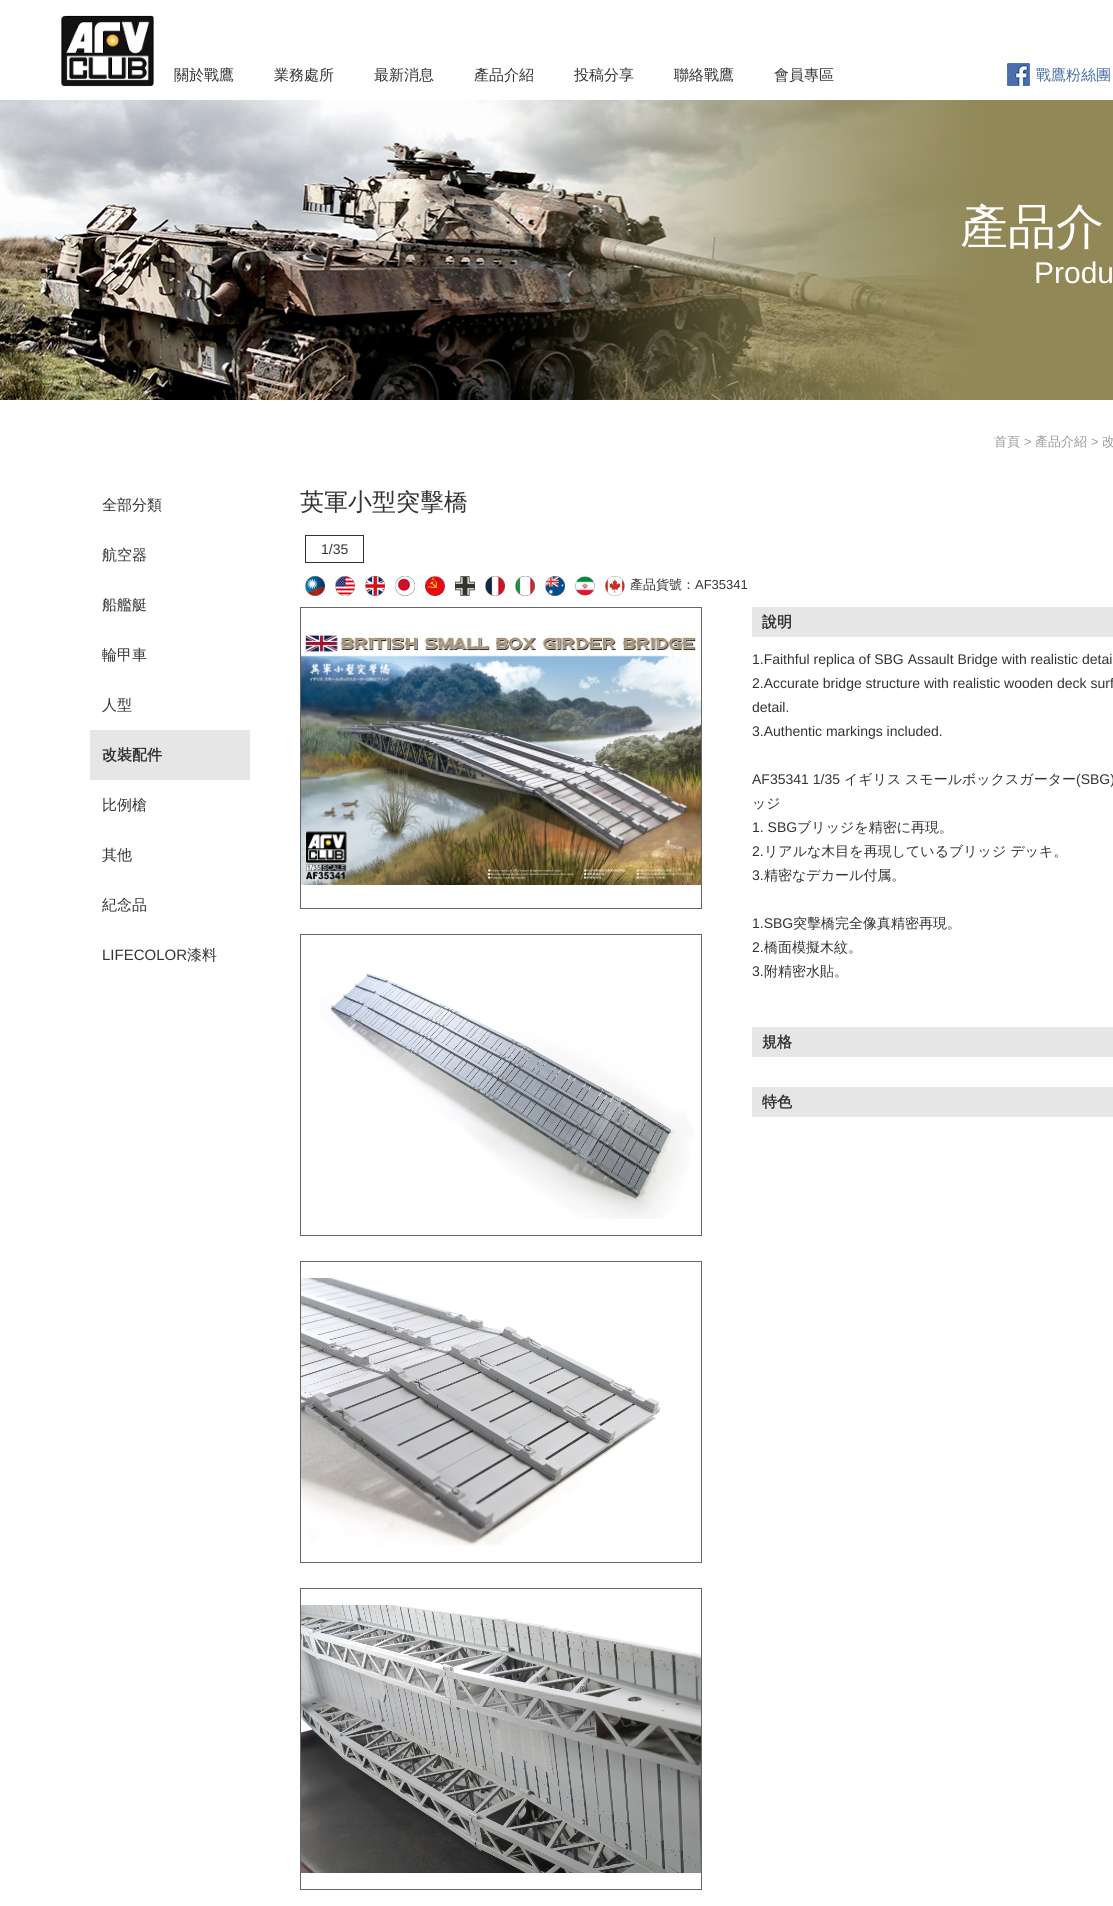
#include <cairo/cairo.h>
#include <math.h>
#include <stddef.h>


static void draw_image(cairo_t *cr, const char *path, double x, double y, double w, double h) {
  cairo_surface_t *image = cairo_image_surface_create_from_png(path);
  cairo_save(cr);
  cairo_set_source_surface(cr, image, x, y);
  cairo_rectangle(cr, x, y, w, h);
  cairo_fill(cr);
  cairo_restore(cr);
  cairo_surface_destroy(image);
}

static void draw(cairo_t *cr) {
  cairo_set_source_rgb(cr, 1, 1, 1);
  cairo_paint(cr);
  draw_image(cr, "images/1.png", 61, 15, 93, 72);
  draw_image(cr, "images/2.png", 1007, 63, 23, 23);
  draw_image(cr, "images/3.png", 0, 100, 1113, 300);
  cairo_set_source_rgb(cr, 230 / 255.0, 230 / 255.0, 230 / 255.0);
  cairo_rectangle(cr, 90, 730, 160, 50);
  cairo_fill(cr);
  cairo_rectangle(cr, 305.5, 535.5, 58, 27);
  cairo_set_source_rgb(cr, 51 / 255.0, 51 / 255.0, 51 / 255.0);
  cairo_set_line_width(cr, 1);
  cairo_stroke(cr);
  draw_image(cr, "images/4.png", 305, 576, 20, 20);
  draw_image(cr, "images/5.png", 335, 576, 20, 20);
  draw_image(cr, "images/6.png", 365, 576, 20, 20);
  draw_image(cr, "images/7.png", 395, 576, 20, 20);
  draw_image(cr, "images/8.png", 425, 576, 20, 20);
  draw_image(cr, "images/9.png", 455, 576, 20, 20);
  draw_image(cr, "images/10.png", 485, 576, 20, 20);
  draw_image(cr, "images/11.png", 515, 576, 20, 20);
  draw_image(cr, "images/12.png", 545, 576, 20, 20);
  draw_image(cr, "images/13.png", 575, 576, 20, 20);
  draw_image(cr, "images/14.png", 605, 576, 20, 20);
  cairo_rectangle(cr, 300.5, 607.5, 401, 301);
  cairo_set_source_rgb(cr, 102 / 255.0, 102 / 255.0, 102 / 255.0);
  cairo_stroke(cr);
  draw_image(cr, "images/15.png", 301, 635, 400, 250);
  cairo_rectangle(cr, 300.5, 934.5, 401, 301);
  cairo_stroke(cr);
  draw_image(cr, "images/16.png", 320, 973, 375, 246);
  cairo_rectangle(cr, 300.5, 1261.5, 401, 301);
  cairo_stroke(cr);
  draw_image(cr, "images/17.png", 301, 1278, 375, 268);
  cairo_rectangle(cr, 300.5, 1588.5, 401, 301);
  cairo_stroke(cr);
  draw_image(cr, "images/18.png", 301, 1605, 400, 268);
  cairo_set_source_rgb(cr, 230 / 255.0, 230 / 255.0, 230 / 255.0);
  cairo_rectangle(cr, 752, 607, 361, 30);
  cairo_fill(cr);
  cairo_rectangle(cr, 752, 1027, 361, 30);
  cairo_fill(cr);
  cairo_rectangle(cr, 752, 1087, 361, 30);
  cairo_fill(cr);
  cairo_select_font_face(cr, "WenQuanYi Zen Hei Medium", CAIRO_FONT_SLANT_NORMAL, CAIRO_FONT_WEIGHT_NORMAL);
  cairo_set_font_size(cr, 15);
  cairo_set_source_rgb(cr, 51 / 255.0, 51 / 255.0, 51 / 255.0);
  cairo_move_to(cr, 174, 80);
  cairo_show_text(cr, "關於戰鷹");
  cairo_move_to(cr, 274, 80);
  cairo_show_text(cr, "業務處所");
  cairo_move_to(cr, 374, 80);
  cairo_show_text(cr, "最新消息");
  cairo_move_to(cr, 474, 80);
  cairo_show_text(cr, "產品介紹");
  cairo_move_to(cr, 574, 80);
  cairo_show_text(cr, "投稿分享");
  cairo_move_to(cr, 674, 80);
  cairo_show_text(cr, "聯絡戰鷹");
  cairo_move_to(cr, 774, 80);
  cairo_show_text(cr, "會員專區");
  cairo_set_source_rgb(cr, 74 / 255.0, 110 / 255.0, 167 / 255.0);
  cairo_move_to(cr, 1036, 80);
  cairo_show_text(cr, "戰鷹粉絲團");
  cairo_set_font_size(cr, 48);
  cairo_set_source_rgb(cr, 1, 1, 1);
  cairo_move_to(cr, 960, 243);
  cairo_show_text(cr, "產品介");
  cairo_select_font_face(cr, "Liberation Sans", CAIRO_FONT_SLANT_NORMAL, CAIRO_FONT_WEIGHT_NORMAL);
  cairo_set_font_size(cr, 30);
  cairo_move_to(cr, 1034, 283);
  cairo_show_text(cr, "Produ");
  cairo_select_font_face(cr, "WenQuanYi Zen Hei Medium", CAIRO_FONT_SLANT_NORMAL, CAIRO_FONT_WEIGHT_NORMAL);
  cairo_set_font_size(cr, 15);
  cairo_set_source_rgb(cr, 51 / 255.0, 51 / 255.0, 51 / 255.0);
  cairo_move_to(cr, 102, 510);
  cairo_show_text(cr, "全部分類");
  cairo_move_to(cr, 102, 560);
  cairo_show_text(cr, "航空器");
  cairo_move_to(cr, 102, 610);
  cairo_show_text(cr, "船艦艇");
  cairo_move_to(cr, 102, 660);
  cairo_show_text(cr, "輪甲車");
  cairo_move_to(cr, 102, 710);
  cairo_show_text(cr, "人型");
  cairo_select_font_face(cr, "WenQuanYi Zen Hei", CAIRO_FONT_SLANT_NORMAL, CAIRO_FONT_WEIGHT_BOLD);
  cairo_move_to(cr, 102, 760);
  cairo_show_text(cr, "改裝配件");
  cairo_select_font_face(cr, "WenQuanYi Zen Hei Medium", CAIRO_FONT_SLANT_NORMAL, CAIRO_FONT_WEIGHT_NORMAL);
  cairo_move_to(cr, 102, 810);
  cairo_show_text(cr, "比例槍");
  cairo_move_to(cr, 102, 860);
  cairo_show_text(cr, "其他");
  cairo_move_to(cr, 102, 910);
  cairo_show_text(cr, "紀念品");
  cairo_select_font_face(cr, "Liberation Sans", CAIRO_FONT_SLANT_NORMAL, CAIRO_FONT_WEIGHT_NORMAL);
  cairo_move_to(cr, 102, 960);
  cairo_show_text(cr, "LIFECOLOR");
  cairo_select_font_face(cr, "WenQuanYi Zen Hei Medium", CAIRO_FONT_SLANT_NORMAL, CAIRO_FONT_WEIGHT_NORMAL);
  cairo_move_to(cr, 187, 960);
  cairo_show_text(cr, "漆料");
  cairo_set_font_size(cr, 13);
  cairo_set_source_rgb(cr, 153 / 255.0, 153 / 255.0, 153 / 255.0);
  cairo_move_to(cr, 994, 446);
  cairo_show_text(cr, "首頁");
  cairo_select_font_face(cr, "Liberation Sans", CAIRO_FONT_SLANT_NORMAL, CAIRO_FONT_WEIGHT_NORMAL);
  cairo_move_to(cr, 1024, 446);
  cairo_show_text(cr, ">");
  cairo_select_font_face(cr, "WenQuanYi Zen Hei Medium", CAIRO_FONT_SLANT_NORMAL, CAIRO_FONT_WEIGHT_NORMAL);
  cairo_move_to(cr, 1035, 446);
  cairo_show_text(cr, "產品介紹");
  cairo_select_font_face(cr, "Liberation Sans", CAIRO_FONT_SLANT_NORMAL, CAIRO_FONT_WEIGHT_NORMAL);
  cairo_move_to(cr, 1091, 446);
  cairo_show_text(cr, ">");
  cairo_select_font_face(cr, "WenQuanYi Zen Hei Medium", CAIRO_FONT_SLANT_NORMAL, CAIRO_FONT_WEIGHT_NORMAL);
  cairo_move_to(cr, 1102, 446);
  cairo_show_text(cr, "改");
  cairo_set_font_size(cr, 24);
  cairo_set_source_rgb(cr, 51 / 255.0, 51 / 255.0, 51 / 255.0);
  cairo_move_to(cr, 300, 510);
  cairo_show_text(cr, "英軍小型突擊橋");
  cairo_select_font_face(cr, "Liberation Sans", CAIRO_FONT_SLANT_NORMAL, CAIRO_FONT_WEIGHT_NORMAL);
  cairo_set_font_size(cr, 14);
  cairo_move_to(cr, 321, 554);
  cairo_show_text(cr, "1/35");
  cairo_select_font_face(cr, "WenQuanYi Zen Hei Medium", CAIRO_FONT_SLANT_NORMAL, CAIRO_FONT_WEIGHT_NORMAL);
  cairo_set_font_size(cr, 13);
  cairo_move_to(cr, 630, 589);
  cairo_show_text(cr, "產品貨號：");
  cairo_select_font_face(cr, "Liberation Sans", CAIRO_FONT_SLANT_NORMAL, CAIRO_FONT_WEIGHT_NORMAL);
  cairo_move_to(cr, 695, 589);
  cairo_show_text(cr, "AF35341");
  cairo_select_font_face(cr, "WenQuanYi Zen Hei", CAIRO_FONT_SLANT_NORMAL, CAIRO_FONT_WEIGHT_BOLD);
  cairo_set_font_size(cr, 15);
  cairo_move_to(cr, 762, 627);
  cairo_show_text(cr, "說明");
  cairo_select_font_face(cr, "Liberation Sans", CAIRO_FONT_SLANT_NORMAL, CAIRO_FONT_WEIGHT_NORMAL);
  cairo_set_font_size(cr, 14);
  cairo_move_to(cr, 752, 664);
  cairo_show_text(cr, "1.Faithful replica of SBG Assault Bridge with realistic detai");
  cairo_move_to(cr, 752, 688);
  cairo_show_text(cr, "2.Accurate bridge structure with realistic wooden deck surf");
  cairo_move_to(cr, 752, 712);
  cairo_show_text(cr, "detail.");
  cairo_move_to(cr, 752, 736);
  cairo_show_text(cr, "3.Authentic markings included.");
  cairo_move_to(cr, 752, 784);
  cairo_show_text(cr, "AF35341 1/35");
  cairo_select_font_face(cr, "WenQuanYi Zen Hei Medium", CAIRO_FONT_SLANT_NORMAL, CAIRO_FONT_WEIGHT_NORMAL);
  cairo_move_to(cr, 844, 784);
  cairo_show_text(cr, "イギリス");
  cairo_move_to(cr, 905, 784);
  cairo_show_text(cr, "スモールボックスガーター");
  cairo_select_font_face(cr, "Liberation Sans", CAIRO_FONT_SLANT_NORMAL, CAIRO_FONT_WEIGHT_NORMAL);
  cairo_move_to(cr, 1076, 784);
  cairo_show_text(cr, "(SBG)");
  cairo_select_font_face(cr, "WenQuanYi Zen Hei Medium", CAIRO_FONT_SLANT_NORMAL, CAIRO_FONT_WEIGHT_NORMAL);
  cairo_move_to(cr, 752, 808);
  cairo_show_text(cr, "ッジ");
  cairo_select_font_face(cr, "Liberation Sans", CAIRO_FONT_SLANT_NORMAL, CAIRO_FONT_WEIGHT_NORMAL);
  cairo_move_to(cr, 752, 832);
  cairo_show_text(cr, "1. SBG");
  cairo_select_font_face(cr, "WenQuanYi Zen Hei Medium", CAIRO_FONT_SLANT_NORMAL, CAIRO_FONT_WEIGHT_NORMAL);
  cairo_move_to(cr, 797, 832);
  cairo_show_text(cr, "ブリッジを精密に再現。");
  cairo_select_font_face(cr, "Liberation Sans", CAIRO_FONT_SLANT_NORMAL, CAIRO_FONT_WEIGHT_NORMAL);
  cairo_move_to(cr, 752, 856);
  cairo_show_text(cr, "2.");
  cairo_select_font_face(cr, "WenQuanYi Zen Hei Medium", CAIRO_FONT_SLANT_NORMAL, CAIRO_FONT_WEIGHT_NORMAL);
  cairo_move_to(cr, 764, 856);
  cairo_show_text(cr, "リアルな木目を再現しているブリッジ デッキ。");
  cairo_select_font_face(cr, "Liberation Sans", CAIRO_FONT_SLANT_NORMAL, CAIRO_FONT_WEIGHT_NORMAL);
  cairo_move_to(cr, 752, 880);
  cairo_show_text(cr, "3.");
  cairo_select_font_face(cr, "WenQuanYi Zen Hei Medium", CAIRO_FONT_SLANT_NORMAL, CAIRO_FONT_WEIGHT_NORMAL);
  cairo_move_to(cr, 764, 880);
  cairo_show_text(cr, "精密なデカール付属。");
  cairo_select_font_face(cr, "Liberation Sans", CAIRO_FONT_SLANT_NORMAL, CAIRO_FONT_WEIGHT_NORMAL);
  cairo_move_to(cr, 752, 928);
  cairo_show_text(cr, "1.SBG");
  cairo_select_font_face(cr, "WenQuanYi Zen Hei Medium", CAIRO_FONT_SLANT_NORMAL, CAIRO_FONT_WEIGHT_NORMAL);
  cairo_move_to(cr, 793, 928);
  cairo_show_text(cr, "突擊橋完全像真精密再現。");
  cairo_select_font_face(cr, "Liberation Sans", CAIRO_FONT_SLANT_NORMAL, CAIRO_FONT_WEIGHT_NORMAL);
  cairo_move_to(cr, 752, 952);
  cairo_show_text(cr, "2.");
  cairo_select_font_face(cr, "WenQuanYi Zen Hei Medium", CAIRO_FONT_SLANT_NORMAL, CAIRO_FONT_WEIGHT_NORMAL);
  cairo_move_to(cr, 764, 952);
  cairo_show_text(cr, "橋面模擬木紋。");
  cairo_select_font_face(cr, "Liberation Sans", CAIRO_FONT_SLANT_NORMAL, CAIRO_FONT_WEIGHT_NORMAL);
  cairo_move_to(cr, 752, 976);
  cairo_show_text(cr, "3.");
  cairo_select_font_face(cr, "WenQuanYi Zen Hei Medium", CAIRO_FONT_SLANT_NORMAL, CAIRO_FONT_WEIGHT_NORMAL);
  cairo_move_to(cr, 764, 976);
  cairo_show_text(cr, "附精密水貼。");
  cairo_select_font_face(cr, "WenQuanYi Zen Hei", CAIRO_FONT_SLANT_NORMAL, CAIRO_FONT_WEIGHT_BOLD);
  cairo_set_font_size(cr, 15);
  cairo_move_to(cr, 762, 1047);
  cairo_show_text(cr, "規格");
  cairo_move_to(cr, 762, 1107);
  cairo_show_text(cr, "特色");
}

int main(void) {
  cairo_surface_t *surface = cairo_image_surface_create(CAIRO_FORMAT_RGB24, 1113, 1906);
  cairo_t *cr = cairo_create(surface);
  cairo_font_options_t *options = cairo_font_options_create();
  cairo_font_options_set_hint_metrics(options, CAIRO_HINT_METRICS_OFF);
  cairo_font_options_set_hint_style(options, CAIRO_HINT_STYLE_NONE);
  cairo_set_font_options(cr, options);
  cairo_set_miter_limit(cr, 4);
  draw(cr);
  cairo_surface_write_to_png(surface, "out.png");
  cairo_font_options_destroy(options);
  cairo_destroy(cr);
  cairo_surface_destroy(surface);
  return 0;
}
